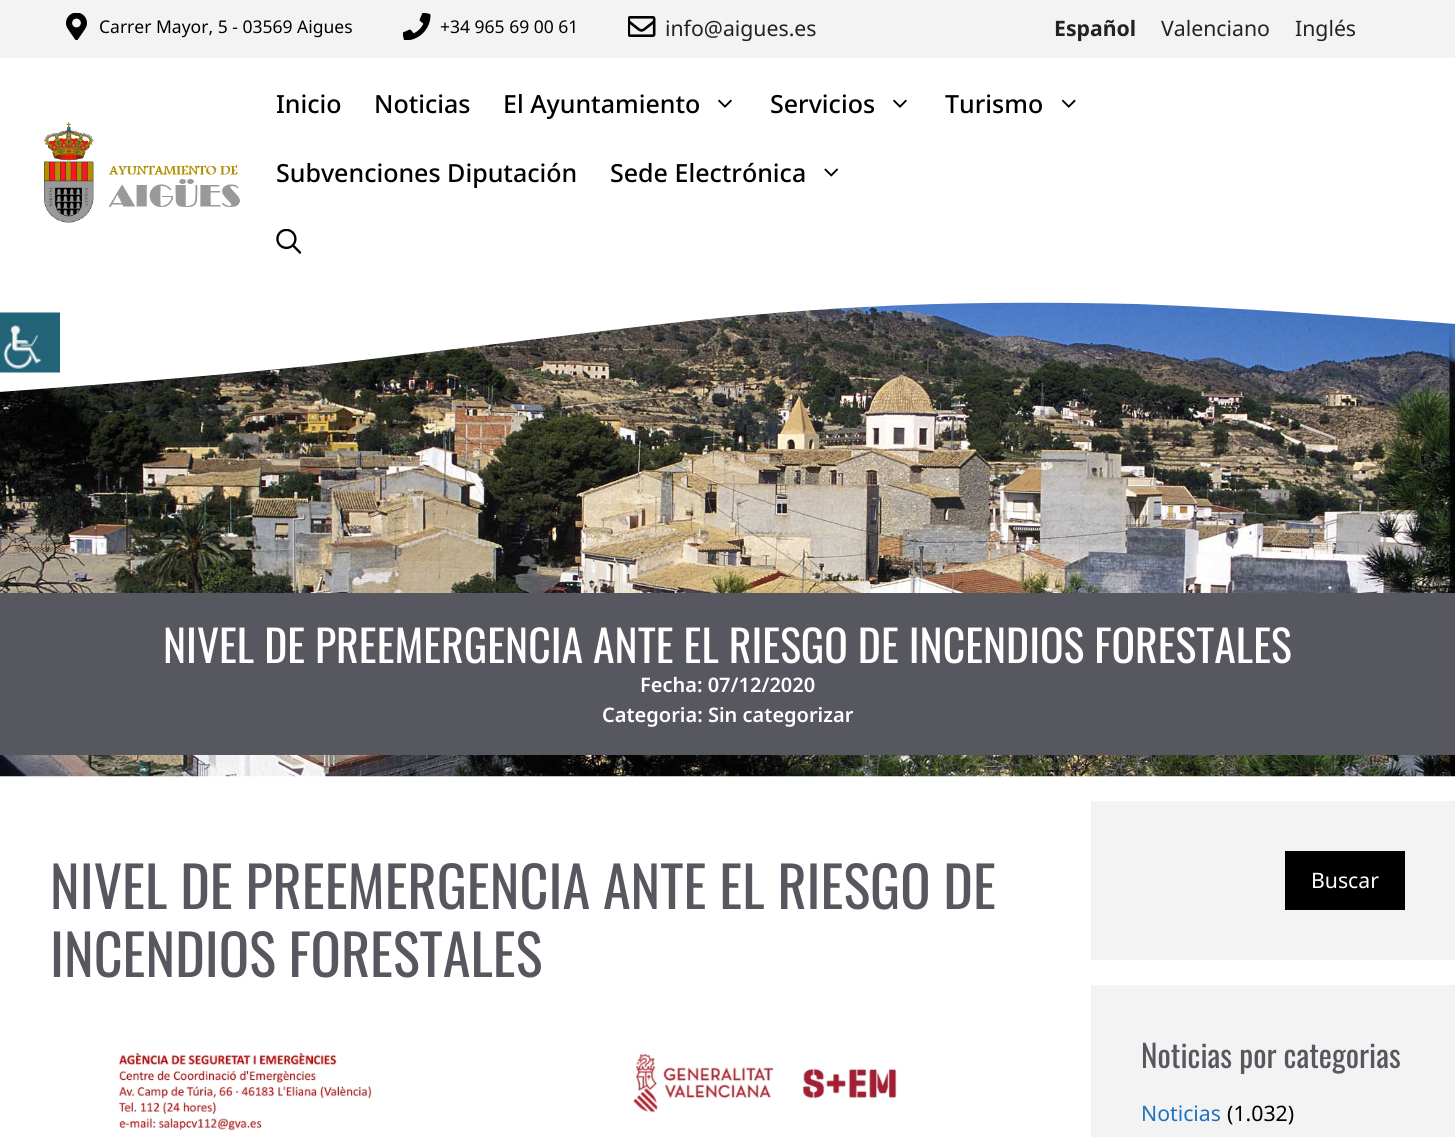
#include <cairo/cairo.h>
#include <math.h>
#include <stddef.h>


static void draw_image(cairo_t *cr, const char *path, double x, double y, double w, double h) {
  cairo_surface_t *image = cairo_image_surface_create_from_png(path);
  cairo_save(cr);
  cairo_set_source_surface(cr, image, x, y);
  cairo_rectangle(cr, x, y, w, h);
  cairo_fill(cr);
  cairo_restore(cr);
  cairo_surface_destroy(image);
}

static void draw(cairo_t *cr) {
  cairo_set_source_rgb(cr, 1, 1, 1);
  cairo_paint(cr);
  cairo_set_source_rgb(cr, 243 / 255.0, 243 / 255.0, 243 / 255.0);
  cairo_rectangle(cr, 0, 0, 1455, 58);
  cairo_fill(cr);
  draw_image(cr, "images/1.png", 66, 13, 21, 27);
  draw_image(cr, "images/2.png", 403, 13, 28, 27);
  draw_image(cr, "images/3.png", 628, 16, 28, 21);
  draw_image(cr, "images/4.png", 44, 122, 196, 101);
  draw_image(cr, "images/5.png", 718, 99, 14, 9);
  draw_image(cr, "images/5.png", 893, 99, 14, 9);
  draw_image(cr, "images/6.png", 1061, 99, 15, 9);
  draw_image(cr, "images/7.png", 824, 168, 15, 9);
  draw_image(cr, "images/8.png", 276, 229, 25, 25);
  draw_image(cr, "images/10.png", 0, 302, 1455, 475);
  cairo_save(cr);
  cairo_rectangle(cr, 0, 294, 1455, 100);
  cairo_clip(cr);
  cairo_set_source_rgb(cr, 1, 1, 1);
  cairo_new_path(cr);
  cairo_move_to(cr, 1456, 324);
  cairo_curve_to(cr, 1350, 316, 1243, 308, 1137, 304);
  cairo_curve_to(cr, 1046, 302, 955, 302, 864, 307);
  cairo_curve_to(cr, 788, 311, 712, 318, 636, 327);
  cairo_line_to(cr, 363, 360);
  cairo_curve_to(cr, 242, 374, 121, 383, -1, 392);
  cairo_line_to(cr, -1, 293);
  cairo_line_to(cr, 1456, 293);
  cairo_close_path(cr);
  cairo_fill(cr);
  cairo_restore(cr);
  draw_image(cr, "images/9.png", 0, 312, 60, 61);
  cairo_set_source_rgb(cr, 87 / 255.0, 87 / 255.0, 96 / 255.0);
  cairo_rectangle(cr, 0, 593, 1455, 162);
  cairo_fill(cr);
  draw_image(cr, "images/11.png", 118, 1052, 779, 79);
  cairo_set_source_rgb(cr, 243 / 255.0, 243 / 255.0, 243 / 255.0);
  cairo_rectangle(cr, 1091, 801, 364, 159);
  cairo_fill(cr);
  cairo_set_source_rgb(cr, 0, 0, 0);
  cairo_rectangle(cr, 1285, 851, 120, 59);
  cairo_fill(cr);
  cairo_set_source_rgb(cr, 243 / 255.0, 243 / 255.0, 243 / 255.0);
  cairo_rectangle(cr, 1091, 985, 364, 152);
  cairo_fill(cr);
  cairo_select_font_face(cr, "Noto Sans", CAIRO_FONT_SLANT_NORMAL, CAIRO_FONT_WEIGHT_NORMAL);
  cairo_set_font_size(cr, 17.5);
  cairo_set_source_rgb(cr, 0, 0, 0);
  cairo_move_to(cr, 99, 33);
  cairo_show_text(cr, "Carrer Mayor, 5 - 03569 Aigues");
  cairo_move_to(cr, 440, 33);
  cairo_show_text(cr, "+34 965 69 00 61");
  cairo_set_font_size(cr, 21.25);
  cairo_set_source_rgb(cr, 34 / 255.0, 34 / 255.0, 34 / 255.0);
  cairo_move_to(cr, 665, 36);
  cairo_show_text(cr, "info@aigues.es");
  cairo_select_font_face(cr, "Noto Sans", CAIRO_FONT_SLANT_NORMAL, CAIRO_FONT_WEIGHT_BOLD);
  cairo_move_to(cr, 1054, 36);
  cairo_show_text(cr, "Español");
  cairo_select_font_face(cr, "Noto Sans", CAIRO_FONT_SLANT_NORMAL, CAIRO_FONT_WEIGHT_NORMAL);
  cairo_move_to(cr, 1161, 36);
  cairo_show_text(cr, "Valenciano");
  cairo_move_to(cr, 1295, 36);
  cairo_show_text(cr, "Inglés");
  cairo_select_font_face(cr, "Noto Sans Medium", CAIRO_FONT_SLANT_NORMAL, CAIRO_FONT_WEIGHT_NORMAL);
  cairo_set_font_size(cr, 25);
  cairo_set_source_rgb(cr, 0, 0, 0);
  cairo_move_to(cr, 276, 113);
  cairo_show_text(cr, "Inicio");
  cairo_move_to(cr, 374, 113);
  cairo_show_text(cr, "Noticias");
  cairo_move_to(cr, 503, 113);
  cairo_show_text(cr, "El Ayuntamiento");
  cairo_move_to(cr, 770, 113);
  cairo_show_text(cr, "Servicios");
  cairo_move_to(cr, 945, 113);
  cairo_show_text(cr, "Turismo");
  cairo_move_to(cr, 276, 182);
  cairo_show_text(cr, "Subvenciones Diputación");
  cairo_move_to(cr, 610, 182);
  cairo_show_text(cr, "Sede Electrónica");
  cairo_select_font_face(cr, "Oswald", CAIRO_FONT_SLANT_NORMAL, CAIRO_FONT_WEIGHT_NORMAL);
  cairo_set_font_size(cr, 43.75);
  cairo_set_source_rgb(cr, 1, 1, 1);
  cairo_move_to(cr, 163, 663);
  cairo_show_text(cr, "NIVEL DE PREEMERGENCIA ANTE EL RIESGO DE INCENDIOS FORESTALES");
  cairo_select_font_face(cr, "Noto Sans SemiBold", CAIRO_FONT_SLANT_NORMAL, CAIRO_FONT_WEIGHT_NORMAL);
  cairo_set_font_size(cr, 20);
  cairo_move_to(cr, 640, 692);
  cairo_show_text(cr, "Fecha: 07/12/2020");
  cairo_move_to(cr, 602, 722);
  cairo_show_text(cr, "Categoria: Sin categorizar");
  cairo_select_font_face(cr, "Oswald", CAIRO_FONT_SLANT_NORMAL, CAIRO_FONT_WEIGHT_NORMAL);
  cairo_set_font_size(cr, 56.25);
  cairo_set_source_rgb(cr, 87 / 255.0, 87 / 255.0, 96 / 255.0);
  cairo_move_to(cr, 50, 909);
  cairo_show_text(cr, "NIVEL DE PREEMERGENCIA ANTE EL RIESGO DE");
  cairo_move_to(cr, 50, 977);
  cairo_show_text(cr, "INCENDIOS FORESTALES");
  cairo_select_font_face(cr, "Noto Sans", CAIRO_FONT_SLANT_NORMAL, CAIRO_FONT_WEIGHT_NORMAL);
  cairo_set_font_size(cr, 21.25);
  cairo_set_source_rgb(cr, 1, 1, 1);
  cairo_move_to(cr, 1311, 888);
  cairo_show_text(cr, "Buscar");
  cairo_select_font_face(cr, "Oswald", CAIRO_FONT_SLANT_NORMAL, CAIRO_FONT_WEIGHT_NORMAL);
  cairo_set_font_size(cr, 31.25);
  cairo_set_source_rgb(cr, 87 / 255.0, 87 / 255.0, 96 / 255.0);
  cairo_move_to(cr, 1141, 1068);
  cairo_show_text(cr, "Noticias por categorias");
  cairo_select_font_face(cr, "Noto Sans", CAIRO_FONT_SLANT_NORMAL, CAIRO_FONT_WEIGHT_NORMAL);
  cairo_set_font_size(cr, 21.25);
  cairo_set_source_rgb(cr, 30 / 255.0, 115 / 255.0, 190 / 255.0);
  cairo_move_to(cr, 1141, 1121);
  cairo_show_text(cr, "Noticias");
  cairo_set_source_rgb(cr, 0, 0, 0);
  cairo_move_to(cr, 1227, 1121);
  cairo_show_text(cr, "(1.032)");
}

int main(void) {
  cairo_surface_t *surface = cairo_image_surface_create(CAIRO_FORMAT_RGB24, 1455, 1137);
  cairo_t *cr = cairo_create(surface);
  cairo_font_options_t *options = cairo_font_options_create();
  cairo_font_options_set_hint_metrics(options, CAIRO_HINT_METRICS_OFF);
  cairo_font_options_set_hint_style(options, CAIRO_HINT_STYLE_NONE);
  cairo_set_font_options(cr, options);
  cairo_set_miter_limit(cr, 4);
  draw(cr);
  cairo_surface_write_to_png(surface, "out.png");
  cairo_font_options_destroy(options);
  cairo_destroy(cr);
  cairo_surface_destroy(surface);
  return 0;
}
